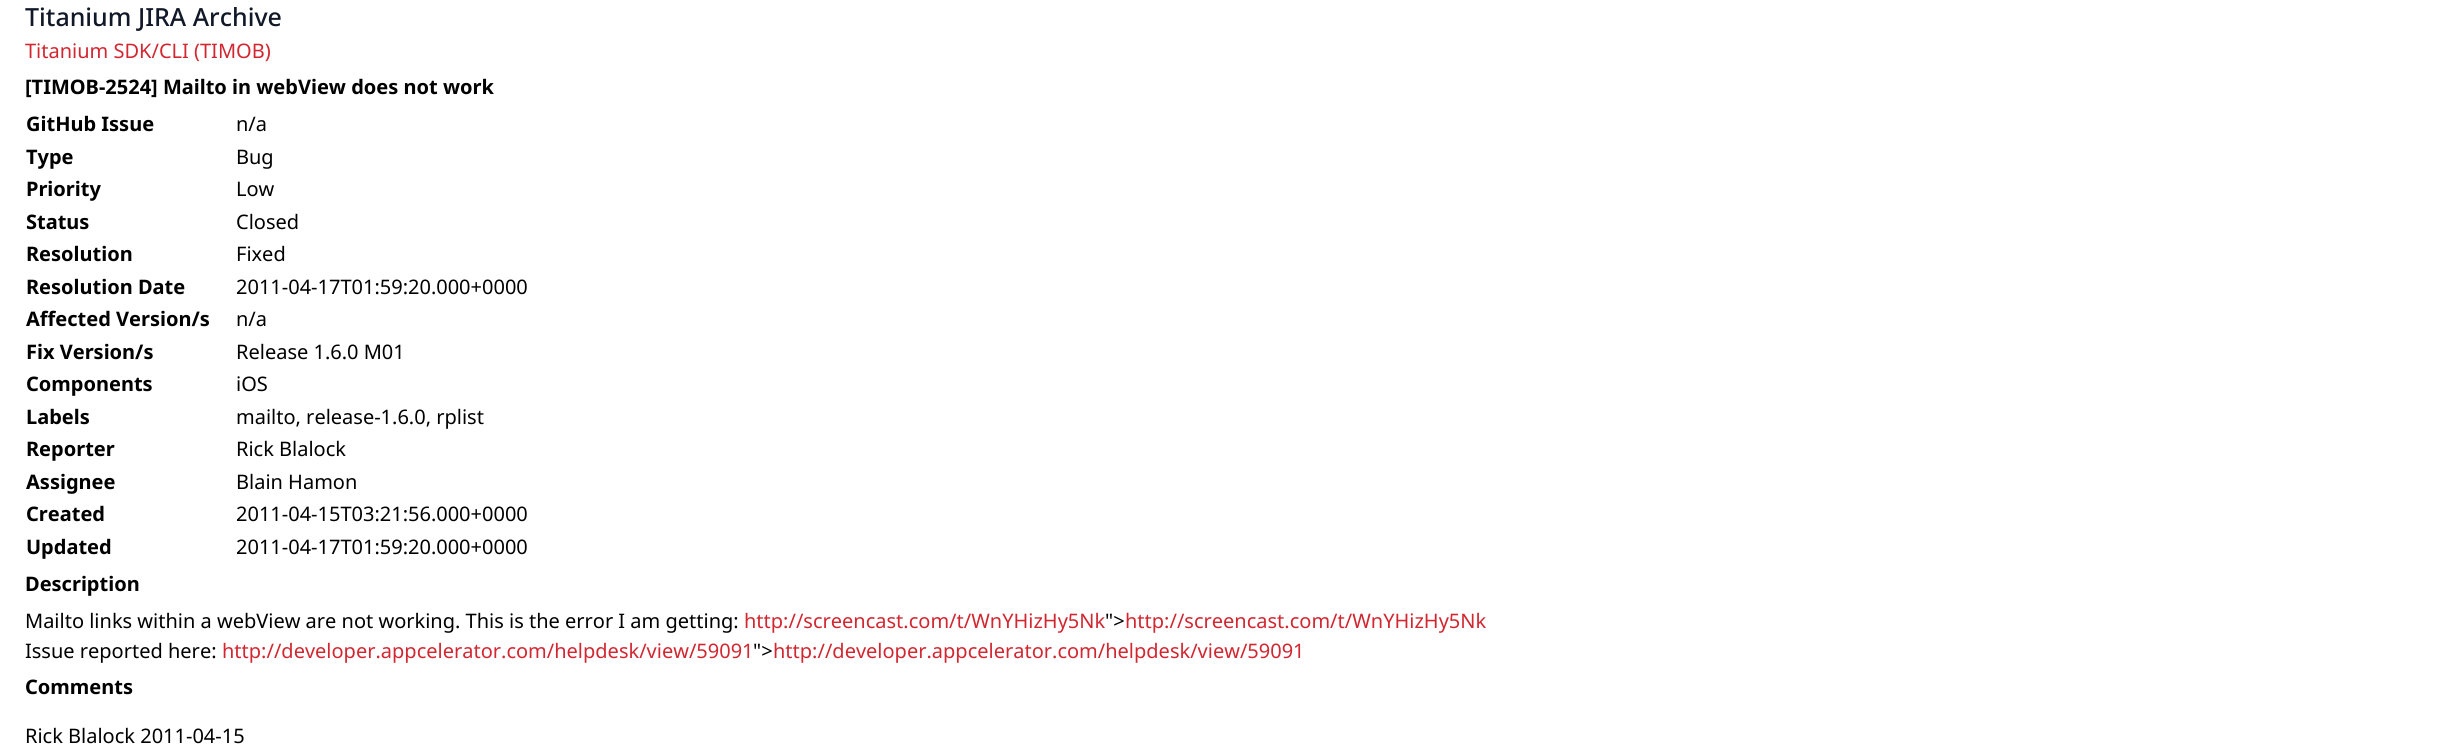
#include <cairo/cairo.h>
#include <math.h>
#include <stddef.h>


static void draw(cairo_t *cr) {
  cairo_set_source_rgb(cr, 1, 1, 1);
  cairo_paint(cr);
  cairo_select_font_face(cr, "Noto Sans Medium", CAIRO_FONT_SLANT_NORMAL, CAIRO_FONT_WEIGHT_NORMAL);
  cairo_set_font_size(cr, 25);
  cairo_set_source_rgb(cr, 17 / 255.0, 24 / 255.0, 39 / 255.0);
  cairo_move_to(cr, 25, 26);
  cairo_show_text(cr, "Titanium JIRA Archive");
  cairo_select_font_face(cr, "Noto Sans", CAIRO_FONT_SLANT_NORMAL, CAIRO_FONT_WEIGHT_NORMAL);
  cairo_set_font_size(cr, 20);
  cairo_set_source_rgb(cr, 210 / 255.0, 38 / 255.0, 48 / 255.0);
  cairo_move_to(cr, 25, 58);
  cairo_show_text(cr, "Titanium SDK/CLI (TIMOB)");
  cairo_select_font_face(cr, "Noto Sans", CAIRO_FONT_SLANT_NORMAL, CAIRO_FONT_WEIGHT_BOLD);
  cairo_set_source_rgb(cr, 0, 0, 0);
  cairo_move_to(cr, 25, 94);
  cairo_show_text(cr, "[TIMOB-2524] Mailto in webView does not work");
  cairo_move_to(cr, 26, 131);
  cairo_show_text(cr, "GitHub Issue");
  cairo_select_font_face(cr, "Noto Sans", CAIRO_FONT_SLANT_NORMAL, CAIRO_FONT_WEIGHT_NORMAL);
  cairo_move_to(cr, 236, 131);
  cairo_show_text(cr, "n/a");
  cairo_select_font_face(cr, "Noto Sans", CAIRO_FONT_SLANT_NORMAL, CAIRO_FONT_WEIGHT_BOLD);
  cairo_move_to(cr, 26, 164);
  cairo_show_text(cr, "Type");
  cairo_select_font_face(cr, "Noto Sans", CAIRO_FONT_SLANT_NORMAL, CAIRO_FONT_WEIGHT_NORMAL);
  cairo_move_to(cr, 236, 164);
  cairo_show_text(cr, "Bug");
  cairo_select_font_face(cr, "Noto Sans", CAIRO_FONT_SLANT_NORMAL, CAIRO_FONT_WEIGHT_BOLD);
  cairo_move_to(cr, 26, 196);
  cairo_show_text(cr, "Priority");
  cairo_select_font_face(cr, "Noto Sans", CAIRO_FONT_SLANT_NORMAL, CAIRO_FONT_WEIGHT_NORMAL);
  cairo_move_to(cr, 236, 196);
  cairo_show_text(cr, "Low");
  cairo_select_font_face(cr, "Noto Sans", CAIRO_FONT_SLANT_NORMAL, CAIRO_FONT_WEIGHT_BOLD);
  cairo_move_to(cr, 26, 229);
  cairo_show_text(cr, "Status");
  cairo_select_font_face(cr, "Noto Sans", CAIRO_FONT_SLANT_NORMAL, CAIRO_FONT_WEIGHT_NORMAL);
  cairo_move_to(cr, 236, 229);
  cairo_show_text(cr, "Closed");
  cairo_select_font_face(cr, "Noto Sans", CAIRO_FONT_SLANT_NORMAL, CAIRO_FONT_WEIGHT_BOLD);
  cairo_move_to(cr, 26, 261);
  cairo_show_text(cr, "Resolution");
  cairo_select_font_face(cr, "Noto Sans", CAIRO_FONT_SLANT_NORMAL, CAIRO_FONT_WEIGHT_NORMAL);
  cairo_move_to(cr, 236, 261);
  cairo_show_text(cr, "Fixed");
  cairo_select_font_face(cr, "Noto Sans", CAIRO_FONT_SLANT_NORMAL, CAIRO_FONT_WEIGHT_BOLD);
  cairo_move_to(cr, 26, 294);
  cairo_show_text(cr, "Resolution Date");
  cairo_select_font_face(cr, "Noto Sans", CAIRO_FONT_SLANT_NORMAL, CAIRO_FONT_WEIGHT_NORMAL);
  cairo_move_to(cr, 236, 294);
  cairo_show_text(cr, "2011-04-17T01:59:20.000+0000");
  cairo_select_font_face(cr, "Noto Sans", CAIRO_FONT_SLANT_NORMAL, CAIRO_FONT_WEIGHT_BOLD);
  cairo_move_to(cr, 26, 326);
  cairo_show_text(cr, "Affected Version/s");
  cairo_select_font_face(cr, "Noto Sans", CAIRO_FONT_SLANT_NORMAL, CAIRO_FONT_WEIGHT_NORMAL);
  cairo_move_to(cr, 236, 326);
  cairo_show_text(cr, "n/a");
  cairo_select_font_face(cr, "Noto Sans", CAIRO_FONT_SLANT_NORMAL, CAIRO_FONT_WEIGHT_BOLD);
  cairo_move_to(cr, 26, 359);
  cairo_show_text(cr, "Fix Version/s");
  cairo_select_font_face(cr, "Noto Sans", CAIRO_FONT_SLANT_NORMAL, CAIRO_FONT_WEIGHT_NORMAL);
  cairo_move_to(cr, 236, 359);
  cairo_show_text(cr, "Release 1.6.0 M01");
  cairo_select_font_face(cr, "Noto Sans", CAIRO_FONT_SLANT_NORMAL, CAIRO_FONT_WEIGHT_BOLD);
  cairo_move_to(cr, 26, 391);
  cairo_show_text(cr, "Components");
  cairo_select_font_face(cr, "Noto Sans", CAIRO_FONT_SLANT_NORMAL, CAIRO_FONT_WEIGHT_NORMAL);
  cairo_move_to(cr, 236, 391);
  cairo_show_text(cr, "iOS");
  cairo_select_font_face(cr, "Noto Sans", CAIRO_FONT_SLANT_NORMAL, CAIRO_FONT_WEIGHT_BOLD);
  cairo_move_to(cr, 26, 424);
  cairo_show_text(cr, "Labels");
  cairo_select_font_face(cr, "Noto Sans", CAIRO_FONT_SLANT_NORMAL, CAIRO_FONT_WEIGHT_NORMAL);
  cairo_move_to(cr, 236, 424);
  cairo_show_text(cr, "mailto, release-1.6.0, rplist");
  cairo_select_font_face(cr, "Noto Sans", CAIRO_FONT_SLANT_NORMAL, CAIRO_FONT_WEIGHT_BOLD);
  cairo_move_to(cr, 26, 456);
  cairo_show_text(cr, "Reporter");
  cairo_select_font_face(cr, "Noto Sans", CAIRO_FONT_SLANT_NORMAL, CAIRO_FONT_WEIGHT_NORMAL);
  cairo_move_to(cr, 236, 456);
  cairo_show_text(cr, "Rick Blalock");
  cairo_select_font_face(cr, "Noto Sans", CAIRO_FONT_SLANT_NORMAL, CAIRO_FONT_WEIGHT_BOLD);
  cairo_move_to(cr, 26, 489);
  cairo_show_text(cr, "Assignee");
  cairo_select_font_face(cr, "Noto Sans", CAIRO_FONT_SLANT_NORMAL, CAIRO_FONT_WEIGHT_NORMAL);
  cairo_move_to(cr, 236, 489);
  cairo_show_text(cr, "Blain Hamon");
  cairo_select_font_face(cr, "Noto Sans", CAIRO_FONT_SLANT_NORMAL, CAIRO_FONT_WEIGHT_BOLD);
  cairo_move_to(cr, 26, 521);
  cairo_show_text(cr, "Created");
  cairo_select_font_face(cr, "Noto Sans", CAIRO_FONT_SLANT_NORMAL, CAIRO_FONT_WEIGHT_NORMAL);
  cairo_move_to(cr, 236, 521);
  cairo_show_text(cr, "2011-04-15T03:21:56.000+0000");
  cairo_select_font_face(cr, "Noto Sans", CAIRO_FONT_SLANT_NORMAL, CAIRO_FONT_WEIGHT_BOLD);
  cairo_move_to(cr, 26, 554);
  cairo_show_text(cr, "Updated");
  cairo_select_font_face(cr, "Noto Sans", CAIRO_FONT_SLANT_NORMAL, CAIRO_FONT_WEIGHT_NORMAL);
  cairo_move_to(cr, 236, 554);
  cairo_show_text(cr, "2011-04-17T01:59:20.000+0000");
  cairo_select_font_face(cr, "Noto Sans", CAIRO_FONT_SLANT_NORMAL, CAIRO_FONT_WEIGHT_BOLD);
  cairo_move_to(cr, 25, 591);
  cairo_show_text(cr, "Description");
  cairo_select_font_face(cr, "Noto Sans", CAIRO_FONT_SLANT_NORMAL, CAIRO_FONT_WEIGHT_NORMAL);
  cairo_move_to(cr, 25, 628);
  cairo_show_text(cr, "Mailto links within a webView are not working. This is the error I am getting:");
  cairo_set_source_rgb(cr, 210 / 255.0, 38 / 255.0, 48 / 255.0);
  cairo_move_to(cr, 744, 628);
  cairo_show_text(cr, "http://screencast.com/t/WnYHizHy5Nk");
  cairo_set_source_rgb(cr, 0, 0, 0);
  cairo_move_to(cr, 1105, 628);
  cairo_show_text(cr, "\">");
  cairo_set_source_rgb(cr, 210 / 255.0, 38 / 255.0, 48 / 255.0);
  cairo_move_to(cr, 1125, 628);
  cairo_show_text(cr, "http://screencast.com/t/WnYHizHy5Nk");
  cairo_set_source_rgb(cr, 0, 0, 0);
  cairo_move_to(cr, 25, 658);
  cairo_show_text(cr, "Issue reported here:");
  cairo_set_source_rgb(cr, 210 / 255.0, 38 / 255.0, 48 / 255.0);
  cairo_move_to(cr, 222, 658);
  cairo_show_text(cr, "http://developer.appcelerator.com/helpdesk/view/59091");
  cairo_set_source_rgb(cr, 0, 0, 0);
  cairo_move_to(cr, 753, 658);
  cairo_show_text(cr, "\">");
  cairo_set_source_rgb(cr, 210 / 255.0, 38 / 255.0, 48 / 255.0);
  cairo_move_to(cr, 773, 658);
  cairo_show_text(cr, "http://developer.appcelerator.com/helpdesk/view/59091");
  cairo_select_font_face(cr, "Noto Sans", CAIRO_FONT_SLANT_NORMAL, CAIRO_FONT_WEIGHT_BOLD);
  cairo_set_source_rgb(cr, 0, 0, 0);
  cairo_move_to(cr, 25, 694);
  cairo_show_text(cr, "Comments");
  cairo_select_font_face(cr, "Noto Sans", CAIRO_FONT_SLANT_NORMAL, CAIRO_FONT_WEIGHT_NORMAL);
  cairo_move_to(cr, 25, 743);
  cairo_show_text(cr, "Rick Blalock 2011-04-15");
}

int main(void) {
  cairo_surface_t *surface = cairo_image_surface_create(CAIRO_FORMAT_RGB24, 2444, 745);
  cairo_t *cr = cairo_create(surface);
  cairo_font_options_t *options = cairo_font_options_create();
  cairo_font_options_set_hint_metrics(options, CAIRO_HINT_METRICS_OFF);
  cairo_font_options_set_hint_style(options, CAIRO_HINT_STYLE_NONE);
  cairo_set_font_options(cr, options);
  cairo_set_miter_limit(cr, 4);
  draw(cr);
  cairo_surface_write_to_png(surface, "out.png");
  cairo_font_options_destroy(options);
  cairo_destroy(cr);
  cairo_surface_destroy(surface);
  return 0;
}
